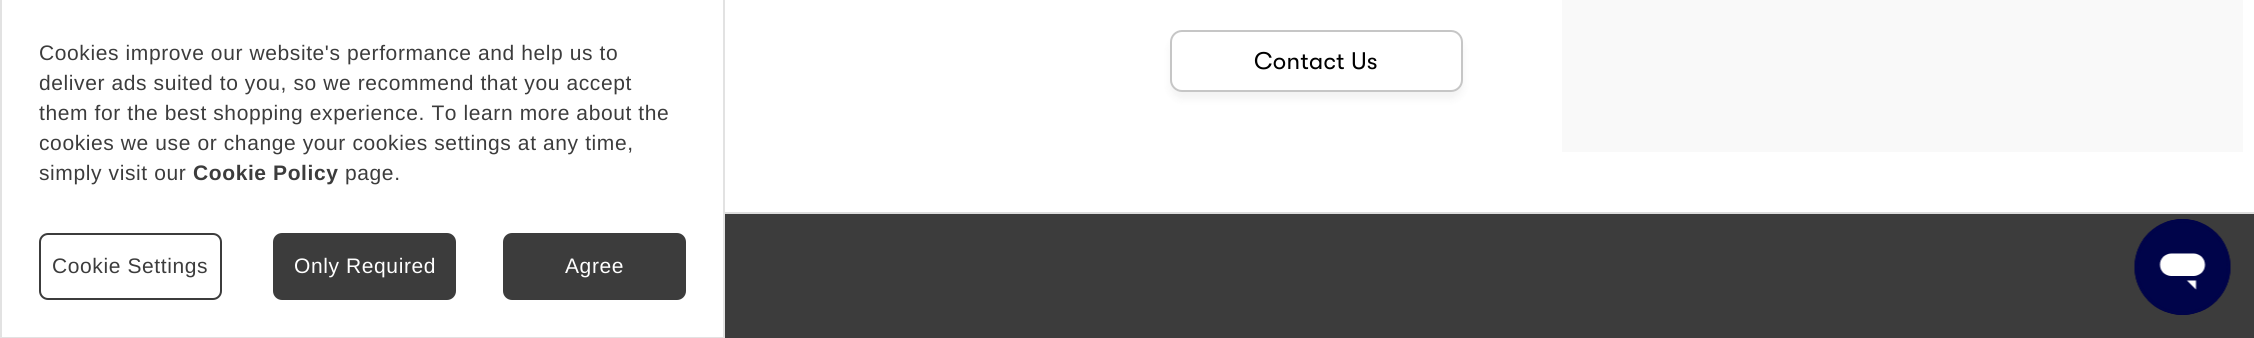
#include <cairo/cairo.h>
#include <math.h>
#include <stddef.h>


static void draw_spaced(cairo_t *cr, double x, double y, const char *s, double letter, double word) {
  cairo_move_to(cr, x, y);
  while (*s) {
    char ch[5] = {0};
    int n = 0;
    do ch[n++] = *s++; while ((*s & 0xC0) == 0x80);
    cairo_show_text(cr, ch);
    cairo_rel_move_to(cr, letter + word * (*ch == ' '), 0);
  }
}

static void rounded_rect(cairo_t *cr, double x, double y, double w, double h, double r) {
  cairo_new_sub_path(cr);
  cairo_arc(cr, x + w - r, y + h - r, r, 0, M_PI / 2);
  cairo_arc(cr, x + r, y + h - r, r, M_PI / 2, M_PI);
  cairo_arc(cr, x + r, y + r, r, M_PI, 1.5 * M_PI);
  cairo_arc(cr, x + w - r, y + r, r, 1.5 * M_PI, 2 * M_PI);
  cairo_close_path(cr);
}

static void draw_shadow(cairo_t *cr, double x, double y, double w, double h, double r, double blur, double alpha) {
  cairo_push_group_with_content(cr, CAIRO_CONTENT_ALPHA);
  cairo_set_operator(cr, CAIRO_OPERATOR_SOURCE);
  for (int i = 15; i >= -15 && fmin(w, h) + blur * i / 3 > 0; i -= 2) {
    double e = blur * i / 6;
    cairo_set_source_rgba(cr, 0, 0, 0, alpha * erfc((i - 1) / 8.5) / 2);
    rounded_rect(cr, x - e, y - e, w + 2 * e, h + 2 * e, fmax(0, fmin(r + e + blur * .6, fmin(w, h) / 2 + e)));
    cairo_fill(cr);
  }
  cairo_pattern_t *soft = cairo_pop_group(cr);
  cairo_mask(cr, soft);
  cairo_pattern_destroy(soft);
}

static void draw_image(cairo_t *cr, const char *path, double x, double y, double w, double h) {
  cairo_surface_t *image = cairo_image_surface_create_from_png(path);
  cairo_save(cr);
  cairo_set_source_surface(cr, image, x, y);
  cairo_rectangle(cr, x, y, w, h);
  cairo_fill(cr);
  cairo_restore(cr);
  cairo_surface_destroy(image);
}

static void draw(cairo_t *cr) {
  cairo_set_source_rgb(cr, 1, 1, 1);
  cairo_paint(cr);
  cairo_rectangle(cr, 1, -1, 723, 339);
  cairo_set_source_rgb(cr, 226 / 255.0, 226 / 255.0, 226 / 255.0);
  cairo_stroke(cr);
  rounded_rect(cr, 40, 234, 181, 65, 8);
  cairo_set_source_rgb(cr, 60 / 255.0, 60 / 255.0, 60 / 255.0);
  cairo_stroke(cr);
  rounded_rect(cr, 274, 234, 181, 65, 8);
  cairo_fill_preserve(cr);
  cairo_stroke(cr);
  rounded_rect(cr, 504, 234, 181, 65, 8);
  cairo_fill_preserve(cr);
  cairo_stroke(cr);
  cairo_set_source_rgb(cr, 0, 0, 0);
  draw_shadow(cr, 1170, 38, 293, 61, 12, 4, 0.05);
  cairo_set_source_rgb(cr, 1, 1, 1);
  rounded_rect(cr, 1171, 31, 291, 60, 11);
  cairo_fill_preserve(cr);
  cairo_set_source_rgb(cr, 198 / 255.0, 198 / 255.0, 198 / 255.0);
  cairo_stroke(cr);
  cairo_set_source_rgb(cr, 249 / 255.0, 249 / 255.0, 249 / 255.0);
  cairo_rectangle(cr, 1562, 0, 681, 152);
  cairo_fill(cr);
  cairo_set_source_rgb(cr, 60 / 255.0, 60 / 255.0, 60 / 255.0);
  cairo_rectangle(cr, 725, 214, 1529, 124);
  cairo_fill(cr);
  cairo_set_source_rgb(cr, 221 / 255.0, 221 / 255.0, 221 / 255.0);
  cairo_rectangle(cr, 725, 212, 1529, 2);
  cairo_fill(cr);
  draw_image(cr, "images/1.png", 2134, 219, 97, 96);
  cairo_select_font_face(cr, "Liberation Sans", CAIRO_FONT_SLANT_NORMAL, CAIRO_FONT_WEIGHT_NORMAL);
  cairo_set_font_size(cr, 21);
  cairo_set_source_rgb(cr, 60 / 255.0, 60 / 255.0, 60 / 255.0);
  draw_spaced(cr, 39, 60, "Cookies improve our website's performance and help us to", 0.6, 0);
  draw_spaced(cr, 39, 90, "deliver ads suited to you, so we recommend that you accept", 0.6, 0);
  draw_spaced(cr, 39, 120, "them for the best shopping experience. To learn more about the", 0.6, 0);
  draw_spaced(cr, 39, 150, "cookies we use or change your cookies settings at any time,", 0.6, 0);
  draw_spaced(cr, 39, 180, "simply visit our", 0.6, 0);
  cairo_select_font_face(cr, "Liberation Sans", CAIRO_FONT_SLANT_NORMAL, CAIRO_FONT_WEIGHT_BOLD);
  draw_spaced(cr, 193, 180, "Cookie Policy", 0.6, 0);
  cairo_select_font_face(cr, "Liberation Sans", CAIRO_FONT_SLANT_NORMAL, CAIRO_FONT_WEIGHT_NORMAL);
  draw_spaced(cr, 345, 180, "page.", 0.6, 0);
  draw_spaced(cr, 52, 273, "Cookie Settings", 0.6, 0);
  cairo_set_source_rgb(cr, 1, 1, 1);
  draw_spaced(cr, 294, 273, "Only Required", 0.6, 0);
  draw_spaced(cr, 565, 273, "Agree", 0.6, 0);
  cairo_select_font_face(cr, "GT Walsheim", CAIRO_FONT_SLANT_NORMAL, CAIRO_FONT_WEIGHT_NORMAL);
  cairo_set_font_size(cr, 24);
  cairo_set_source_rgb(cr, 0, 0, 0);
  draw_spaced(cr, 1254, 69, "Contact Us", 0.25, 0);
}

int main(void) {
  cairo_surface_t *surface = cairo_image_surface_create(CAIRO_FORMAT_RGB24, 2254, 338);
  cairo_t *cr = cairo_create(surface);
  cairo_font_options_t *options = cairo_font_options_create();
  cairo_font_options_set_hint_metrics(options, CAIRO_HINT_METRICS_OFF);
  cairo_font_options_set_hint_style(options, CAIRO_HINT_STYLE_NONE);
  cairo_set_font_options(cr, options);
  cairo_set_miter_limit(cr, 4);
  draw(cr);
  cairo_surface_write_to_png(surface, "out.png");
  cairo_font_options_destroy(options);
  cairo_destroy(cr);
  cairo_surface_destroy(surface);
  return 0;
}
